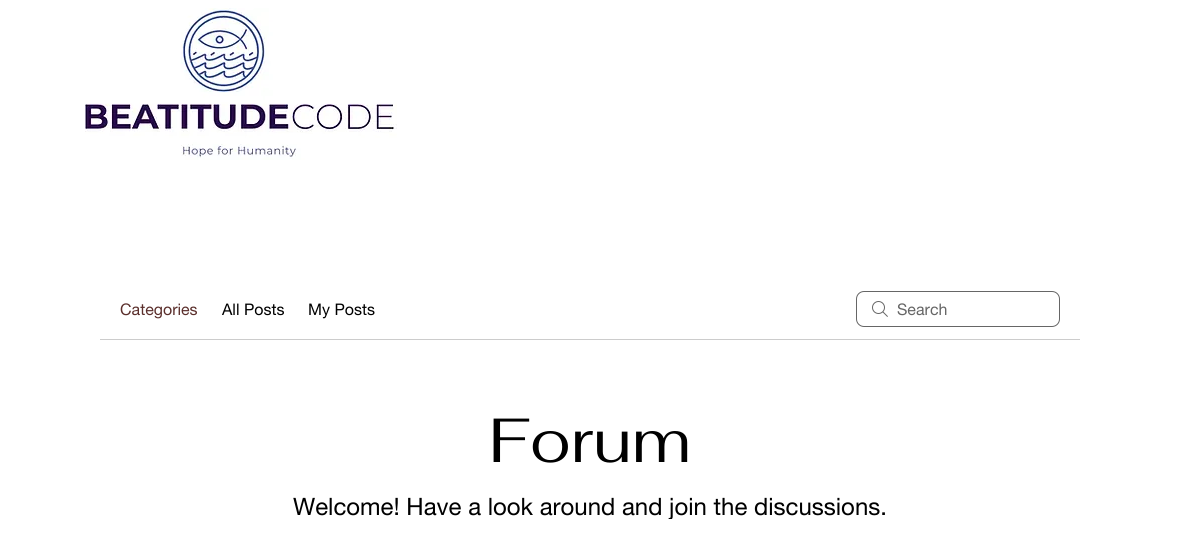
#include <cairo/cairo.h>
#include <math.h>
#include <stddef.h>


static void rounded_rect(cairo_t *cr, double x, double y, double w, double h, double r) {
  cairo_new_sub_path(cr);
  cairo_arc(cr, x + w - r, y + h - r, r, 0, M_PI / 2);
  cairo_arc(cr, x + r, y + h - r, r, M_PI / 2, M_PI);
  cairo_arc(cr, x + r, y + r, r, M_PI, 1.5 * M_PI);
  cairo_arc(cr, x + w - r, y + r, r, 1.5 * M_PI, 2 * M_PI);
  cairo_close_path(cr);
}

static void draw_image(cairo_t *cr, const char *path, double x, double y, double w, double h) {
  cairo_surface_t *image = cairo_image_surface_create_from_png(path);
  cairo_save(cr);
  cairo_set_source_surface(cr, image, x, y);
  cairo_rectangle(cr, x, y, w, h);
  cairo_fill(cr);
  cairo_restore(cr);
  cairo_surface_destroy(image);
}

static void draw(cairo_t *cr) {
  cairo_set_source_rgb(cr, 1, 1, 1);
  cairo_paint(cr);
  draw_image(cr, "images/1.png", 85, 8, 312, 152);
  cairo_set_source_rgb(cr, 204 / 255.0, 204 / 255.0, 204 / 255.0);
  cairo_rectangle(cr, 100, 339, 980, 1);
  cairo_fill(cr);
  draw_image(cr, "images/2.png", 872, 301, 16, 16);
  rounded_rect(cr, 856.5, 291.5, 203, 35, 7.5);
  cairo_set_source_rgb(cr, 102 / 255.0, 102 / 255.0, 102 / 255.0);
  cairo_set_line_width(cr, 1);
  cairo_stroke(cr);
  cairo_select_font_face(cr, "helvetica neue", CAIRO_FONT_SLANT_NORMAL, CAIRO_FONT_WEIGHT_NORMAL);
  cairo_set_font_size(cr, 16);
  cairo_set_source_rgb(cr, 91 / 255.0, 47 / 255.0, 44 / 255.0);
  cairo_move_to(cr, 120, 315);
  cairo_show_text(cr, "Categories");
  cairo_set_source_rgb(cr, 0, 0, 0);
  cairo_move_to(cr, 222, 315);
  cairo_show_text(cr, "All Posts");
  cairo_move_to(cr, 308, 315);
  cairo_show_text(cr, "My Posts");
  cairo_set_source_rgb(cr, 102 / 255.0, 102 / 255.0, 102 / 255.0);
  cairo_move_to(cr, 897, 315);
  cairo_show_text(cr, "Search");
  cairo_select_font_face(cr, "Fahkwang", CAIRO_FONT_SLANT_NORMAL, CAIRO_FONT_WEIGHT_NORMAL);
  cairo_set_font_size(cr, 62);
  cairo_set_source_rgb(cr, 0, 0, 0);
  cairo_move_to(cr, 489, 462);
  cairo_show_text(cr, "Forum");
  cairo_save(cr);
  cairo_rectangle(cr, 250, 493, 680, 26);
  cairo_clip(cr);
  cairo_select_font_face(cr, "helvetica neue", CAIRO_FONT_SLANT_NORMAL, CAIRO_FONT_WEIGHT_NORMAL);
  cairo_set_font_size(cr, 24);
  cairo_move_to(cr, 293, 515);
  cairo_show_text(cr, "Welcome! Have a look around and join the discussions.");
  cairo_restore(cr);
}

int main(void) {
  cairo_surface_t *surface = cairo_image_surface_create(CAIRO_FORMAT_RGB24, 1180, 551);
  cairo_t *cr = cairo_create(surface);
  cairo_font_options_t *options = cairo_font_options_create();
  cairo_font_options_set_hint_metrics(options, CAIRO_HINT_METRICS_OFF);
  cairo_font_options_set_hint_style(options, CAIRO_HINT_STYLE_NONE);
  cairo_set_font_options(cr, options);
  cairo_set_miter_limit(cr, 4);
  draw(cr);
  cairo_surface_write_to_png(surface, "out.png");
  cairo_font_options_destroy(options);
  cairo_destroy(cr);
  cairo_surface_destroy(surface);
  return 0;
}
